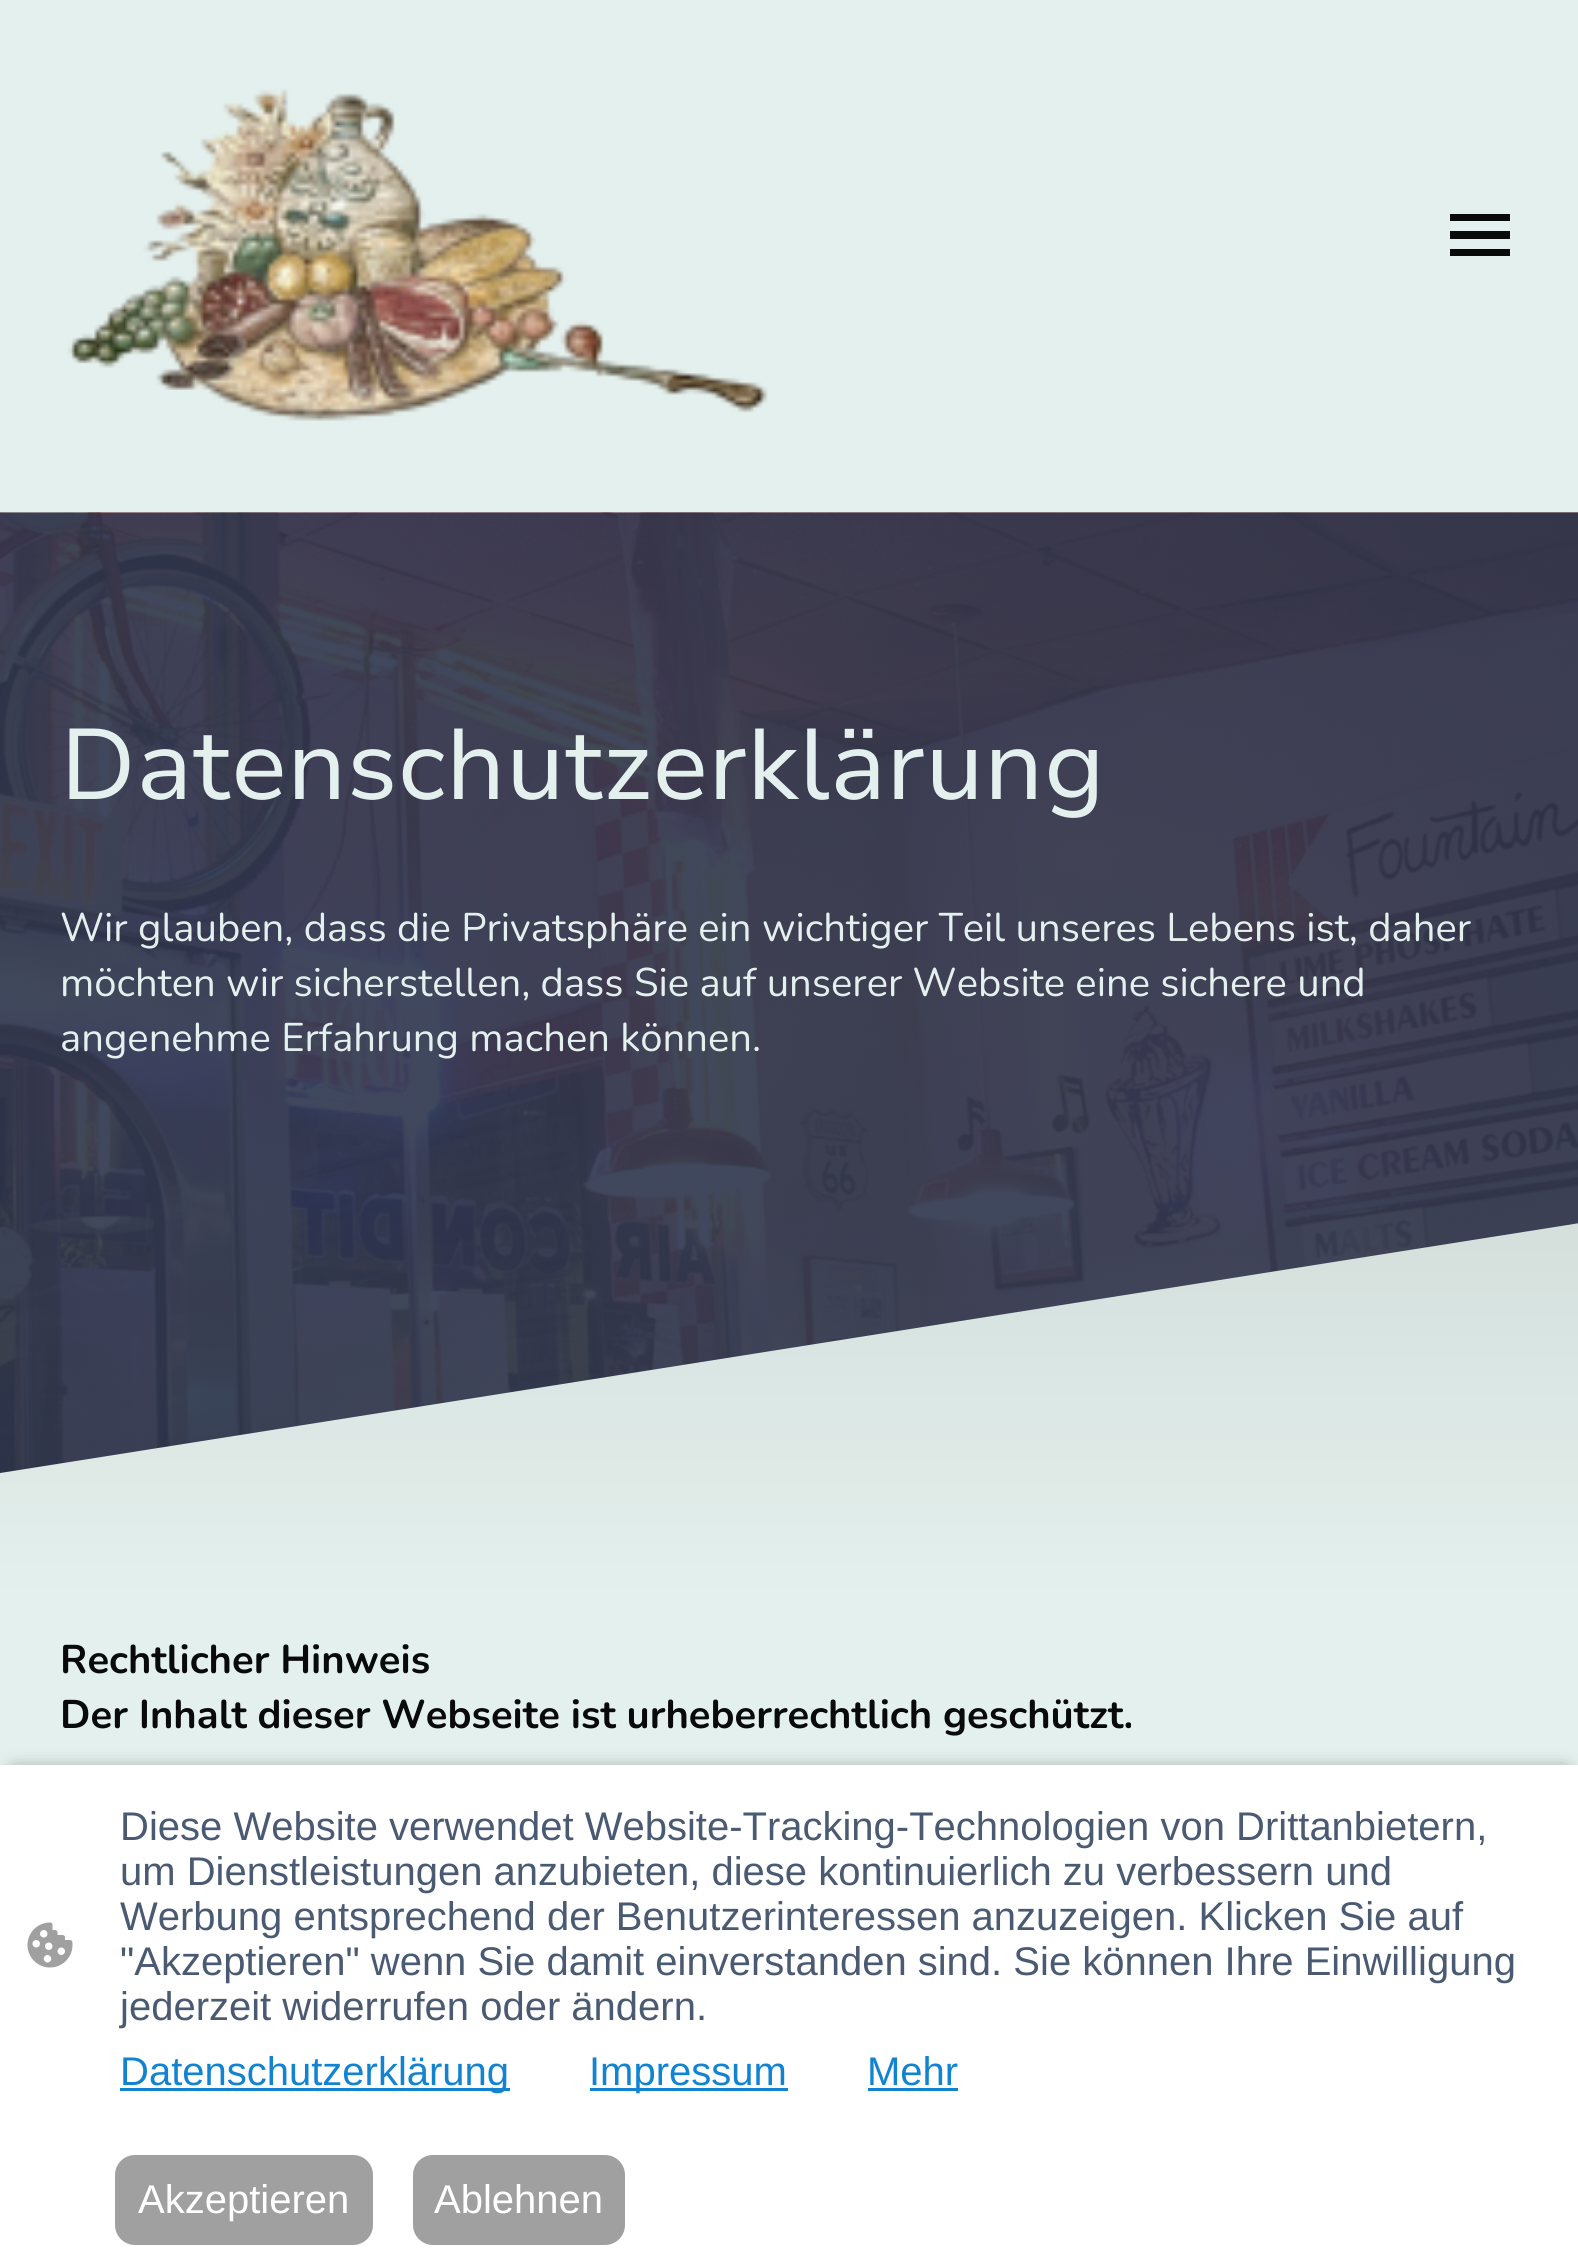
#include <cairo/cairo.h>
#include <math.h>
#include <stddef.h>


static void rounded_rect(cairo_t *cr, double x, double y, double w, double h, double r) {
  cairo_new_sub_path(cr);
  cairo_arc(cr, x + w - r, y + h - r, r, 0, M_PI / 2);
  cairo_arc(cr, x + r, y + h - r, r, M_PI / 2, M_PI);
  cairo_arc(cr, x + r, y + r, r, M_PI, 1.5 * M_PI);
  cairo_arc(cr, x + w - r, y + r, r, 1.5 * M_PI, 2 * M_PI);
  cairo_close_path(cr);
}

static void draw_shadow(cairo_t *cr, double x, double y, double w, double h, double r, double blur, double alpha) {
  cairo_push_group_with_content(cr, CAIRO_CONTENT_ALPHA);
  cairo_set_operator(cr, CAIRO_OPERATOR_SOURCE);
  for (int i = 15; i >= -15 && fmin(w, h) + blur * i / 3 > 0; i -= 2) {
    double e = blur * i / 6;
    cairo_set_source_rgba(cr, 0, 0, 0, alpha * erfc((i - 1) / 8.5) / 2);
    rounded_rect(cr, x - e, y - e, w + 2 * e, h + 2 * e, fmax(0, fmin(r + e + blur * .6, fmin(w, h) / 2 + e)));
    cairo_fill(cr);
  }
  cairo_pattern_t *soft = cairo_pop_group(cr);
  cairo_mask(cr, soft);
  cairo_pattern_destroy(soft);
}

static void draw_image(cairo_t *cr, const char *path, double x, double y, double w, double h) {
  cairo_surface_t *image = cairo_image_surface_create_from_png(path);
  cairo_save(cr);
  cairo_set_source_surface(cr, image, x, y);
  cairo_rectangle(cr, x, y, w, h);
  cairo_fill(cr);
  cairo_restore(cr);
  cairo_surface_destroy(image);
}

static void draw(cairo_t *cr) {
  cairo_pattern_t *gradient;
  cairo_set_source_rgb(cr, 228 / 255.0, 240 / 255.0, 237 / 255.0);
  cairo_paint(cr);
  draw_image(cr, "images/1.png", 67, 88, 701, 333);
  cairo_set_source_rgb(cr, 9 / 255.0, 10 / 255.0, 10 / 255.0);
  cairo_rectangle(cr, 1450, 214, 60, 7);
  cairo_fill(cr);
  cairo_rectangle(cr, 1450, 231, 60, 8);
  cairo_fill(cr);
  cairo_rectangle(cr, 1450, 249, 60, 7);
  cairo_fill(cr);
  draw_image(cr, "images/2.png", 0, 512, 1578, 961);
  cairo_set_source_rgb(cr, 228 / 255.0, 240 / 255.0, 237 / 255.0);
  cairo_new_path(cr);
  cairo_move_to(cr, 0, 1473);
  cairo_line_to(cr, 0, 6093);
  cairo_line_to(cr, 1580, 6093);
  cairo_line_to(cr, 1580, 1223);
  cairo_close_path(cr);
  cairo_fill(cr);
  gradient = cairo_pattern_create_linear(790, 1222, 790, 1598);
  cairo_pattern_add_color_stop_rgba(gradient, 0, 0, 0, 0, 0.07);
  cairo_pattern_add_color_stop_rgba(gradient, 1, 0, 0, 0, 0);
  cairo_set_source(cr, gradient);
  cairo_pattern_destroy(gradient);
  cairo_new_path(cr);
  cairo_move_to(cr, 0, 1473);
  cairo_line_to(cr, 0, 1598);
  cairo_line_to(cr, 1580, 1598);
  cairo_line_to(cr, 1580, 1223);
  cairo_close_path(cr);
  cairo_fill(cr);
  cairo_set_source_rgb(cr, 0, 0, 0);
  draw_shadow(cr, 15, 1773, 1550, 470, 0, 10, 0.63);
  cairo_set_source_rgb(cr, 1, 1, 1);
  cairo_rectangle(cr, 0, 1765, 1578, 500);
  cairo_fill(cr);
  draw_image(cr, "images/3.png", 27, 1922, 46, 46);
  cairo_set_source_rgb(cr, 17 / 255.0, 131 / 255.0, 209 / 255.0);
  cairo_rectangle(cr, 120, 2088, 390, 3);
  cairo_fill(cr);
  cairo_rectangle(cr, 590, 2088, 198, 3);
  cairo_fill(cr);
  cairo_rectangle(cr, 868, 2088, 90, 3);
  cairo_fill(cr);
  cairo_set_source_rgb(cr, 160 / 255.0, 160 / 255.0, 160 / 255.0);
  rounded_rect(cr, 116.5, 2156.5, 255, 87, 18.5);
  cairo_fill_preserve(cr);
  cairo_set_line_width(cr, 3);
  cairo_stroke(cr);
  rounded_rect(cr, 414.5, 2156.5, 209, 87, 18.5);
  cairo_fill_preserve(cr);
  cairo_stroke(cr);
  cairo_select_font_face(cr, "Nunito Sans", CAIRO_FONT_SLANT_NORMAL, CAIRO_FONT_WEIGHT_NORMAL);
  cairo_set_font_size(cr, 100);
  cairo_set_source_rgb(cr, 228 / 255.0, 240 / 255.0, 237 / 255.0);
  cairo_move_to(cr, 60, 799);
  cairo_show_text(cr, "Datenschutzerklärung");
  cairo_select_font_face(cr, "Nunito", CAIRO_FONT_SLANT_NORMAL, CAIRO_FONT_WEIGHT_NORMAL);
  cairo_set_font_size(cr, 40);
  cairo_move_to(cr, 60, 941);
  cairo_show_text(cr, "Wir glauben, dass die Privatsphäre ein wichtiger Teil unseres Lebens ist, daher");
  cairo_move_to(cr, 60, 996);
  cairo_show_text(cr, "möchten wir sicherstellen, dass Sie auf unserer Website eine sichere und");
  cairo_move_to(cr, 60, 1051);
  cairo_show_text(cr, "angenehme Erfahrung machen können.");
  cairo_select_font_face(cr, "Nunito", CAIRO_FONT_SLANT_NORMAL, CAIRO_FONT_WEIGHT_BOLD);
  cairo_set_source_rgb(cr, 9 / 255.0, 10 / 255.0, 10 / 255.0);
  cairo_move_to(cr, 60, 1673);
  cairo_show_text(cr, "Rechtlicher Hinweis");
  cairo_move_to(cr, 60, 1728);
  cairo_show_text(cr, "Der Inhalt dieser Webseite ist urheberrechtlich geschützt.");
  cairo_select_font_face(cr, "Liberation Sans", CAIRO_FONT_SLANT_NORMAL, CAIRO_FONT_WEIGHT_NORMAL);
  cairo_set_source_rgb(cr, 74 / 255.0, 90 / 255.0, 115 / 255.0);
  cairo_move_to(cr, 120, 1840);
  cairo_show_text(cr, "Diese Website verwendet Website-Tracking-Technologien von Drittanbietern,");
  cairo_move_to(cr, 120, 1885);
  cairo_show_text(cr, "um Dienstleistungen anzubieten, diese kontinuierlich zu verbessern und");
  cairo_move_to(cr, 120, 1930);
  cairo_show_text(cr, "Werbung entsprechend der Benutzerinteressen anzuzeigen. Klicken Sie auf");
  cairo_move_to(cr, 120, 1975);
  cairo_show_text(cr, "\"Akzeptieren\" wenn Sie damit einverstanden sind. Sie können Ihre Einwilligung");
  cairo_move_to(cr, 120, 2020);
  cairo_show_text(cr, "jederzeit widerrufen oder ändern.");
  cairo_set_source_rgb(cr, 17 / 255.0, 131 / 255.0, 209 / 255.0);
  cairo_move_to(cr, 120, 2085);
  cairo_show_text(cr, "Datenschutzerklärung");
  cairo_move_to(cr, 589, 2085);
  cairo_show_text(cr, "Impressum");
  cairo_move_to(cr, 867, 2085);
  cairo_show_text(cr, "Mehr");
  cairo_set_source_rgb(cr, 1, 1, 1);
  cairo_move_to(cr, 138, 2213);
  cairo_show_text(cr, "Akzeptieren");
  cairo_move_to(cr, 434, 2213);
  cairo_show_text(cr, "Ablehnen");
}

int main(void) {
  cairo_surface_t *surface = cairo_image_surface_create(CAIRO_FORMAT_RGB24, 1578, 2265);
  cairo_t *cr = cairo_create(surface);
  cairo_font_options_t *options = cairo_font_options_create();
  cairo_font_options_set_hint_metrics(options, CAIRO_HINT_METRICS_OFF);
  cairo_font_options_set_hint_style(options, CAIRO_HINT_STYLE_NONE);
  cairo_set_font_options(cr, options);
  cairo_set_miter_limit(cr, 4);
  draw(cr);
  cairo_surface_write_to_png(surface, "out.png");
  cairo_font_options_destroy(options);
  cairo_destroy(cr);
  cairo_surface_destroy(surface);
  return 0;
}
